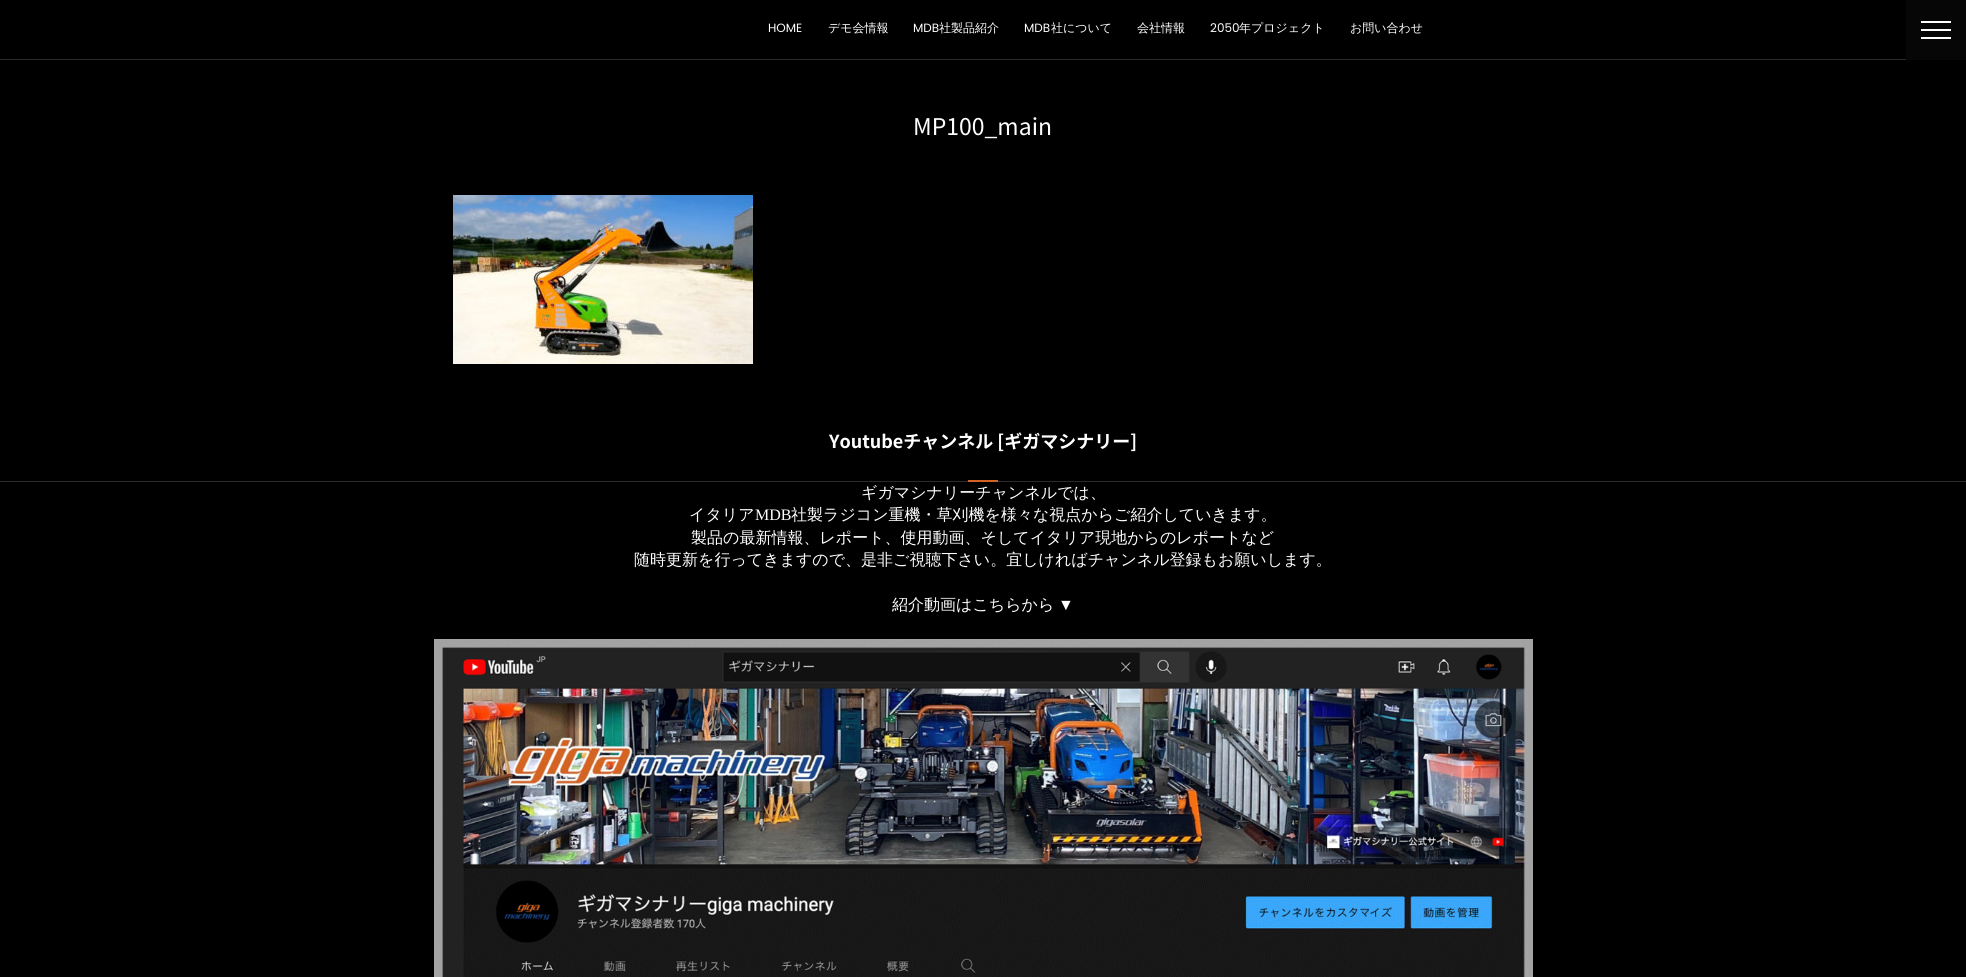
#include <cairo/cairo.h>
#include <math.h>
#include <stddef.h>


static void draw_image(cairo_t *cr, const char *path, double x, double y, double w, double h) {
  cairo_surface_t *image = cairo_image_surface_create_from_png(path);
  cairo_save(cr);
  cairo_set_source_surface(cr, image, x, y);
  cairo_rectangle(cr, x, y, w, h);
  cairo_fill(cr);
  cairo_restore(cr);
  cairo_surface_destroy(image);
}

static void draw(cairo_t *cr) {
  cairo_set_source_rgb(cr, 0, 0, 0);
  cairo_paint(cr);
  cairo_set_source_rgb(cr, 42 / 255.0, 42 / 255.0, 42 / 255.0);
  cairo_rectangle(cr, 0, 59, 1906, 1);
  cairo_fill(cr);
  draw_image(cr, "images/1.png", 453, 195, 300, 169);
  cairo_rectangle(cr, 0, 481, 1966, 1);
  cairo_fill(cr);
  cairo_set_source_rgb(cr, 213 / 255.0, 98 / 255.0, 37 / 255.0);
  cairo_rectangle(cr, 968, 480, 30, 2);
  cairo_fill(cr);
  draw_image(cr, "images/2.png", 434, 639, 1099, 338);
  cairo_set_source_rgb(cr, 6 / 255.0, 6 / 255.0, 6 / 255.0);
  cairo_rectangle(cr, 1906, 0, 60, 60);
  cairo_fill(cr);
  cairo_set_source_rgb(cr, 1, 1, 1);
  cairo_rectangle(cr, 1921, 21, 30, 2);
  cairo_fill(cr);
  cairo_rectangle(cr, 1921, 29, 30, 2);
  cairo_fill(cr);
  cairo_rectangle(cr, 1921, 37, 30, 2);
  cairo_fill(cr);
  cairo_select_font_face(cr, "Poppins", CAIRO_FONT_SLANT_NORMAL, CAIRO_FONT_WEIGHT_NORMAL);
  cairo_set_font_size(cr, 12);
  cairo_move_to(cr, 768, 32);
  cairo_show_text(cr, "HOME");
  cairo_select_font_face(cr, "WenQuanYi Zen Hei Medium", CAIRO_FONT_SLANT_NORMAL, CAIRO_FONT_WEIGHT_NORMAL);
  cairo_move_to(cr, 828, 32);
  cairo_show_text(cr, "デモ会情報");
  cairo_select_font_face(cr, "Poppins", CAIRO_FONT_SLANT_NORMAL, CAIRO_FONT_WEIGHT_NORMAL);
  cairo_move_to(cr, 913, 32);
  cairo_show_text(cr, "MDB");
  cairo_select_font_face(cr, "WenQuanYi Zen Hei Medium", CAIRO_FONT_SLANT_NORMAL, CAIRO_FONT_WEIGHT_NORMAL);
  cairo_move_to(cr, 939, 32);
  cairo_show_text(cr, "社製品紹介");
  cairo_select_font_face(cr, "Poppins", CAIRO_FONT_SLANT_NORMAL, CAIRO_FONT_WEIGHT_NORMAL);
  cairo_move_to(cr, 1024, 32);
  cairo_show_text(cr, "MDB");
  cairo_select_font_face(cr, "WenQuanYi Zen Hei Medium", CAIRO_FONT_SLANT_NORMAL, CAIRO_FONT_WEIGHT_NORMAL);
  cairo_move_to(cr, 1051, 32);
  cairo_show_text(cr, "社について");
  cairo_move_to(cr, 1137, 32);
  cairo_show_text(cr, "会社情報");
  cairo_select_font_face(cr, "Poppins", CAIRO_FONT_SLANT_NORMAL, CAIRO_FONT_WEIGHT_NORMAL);
  cairo_move_to(cr, 1210, 32);
  cairo_show_text(cr, "2050");
  cairo_select_font_face(cr, "WenQuanYi Zen Hei Medium", CAIRO_FONT_SLANT_NORMAL, CAIRO_FONT_WEIGHT_NORMAL);
  cairo_move_to(cr, 1239, 32);
  cairo_show_text(cr, "年プロジェクト");
  cairo_move_to(cr, 1350, 32);
  cairo_show_text(cr, "お問い合わせ");
  cairo_select_font_face(cr, "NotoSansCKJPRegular", CAIRO_FONT_SLANT_NORMAL, CAIRO_FONT_WEIGHT_NORMAL);
  cairo_set_font_size(cr, 23);
  cairo_move_to(cr, 913, 135);
  cairo_show_text(cr, "MP100_main");
  cairo_select_font_face(cr, "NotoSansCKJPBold", CAIRO_FONT_SLANT_NORMAL, CAIRO_FONT_WEIGHT_BOLD);
  cairo_set_font_size(cr, 18);
  cairo_move_to(cr, 829, 448);
  cairo_show_text(cr, "Youtubeチャンネル [ギガマシナリー]");
  cairo_select_font_face(cr, "WenQuanYi Zen Hei Medium", CAIRO_FONT_SLANT_NORMAL, CAIRO_FONT_WEIGHT_NORMAL);
  cairo_set_font_size(cr, 16);
  cairo_move_to(cr, 861, 498);
  cairo_show_text(cr, "ギガマシナリーチャンネルでは、");
  cairo_move_to(cr, 689, 520);
  cairo_show_text(cr, "イタリア");
  cairo_select_font_face(cr, "Liberation Serif", CAIRO_FONT_SLANT_NORMAL, CAIRO_FONT_WEIGHT_NORMAL);
  cairo_move_to(cr, 755, 520);
  cairo_show_text(cr, "MDB");
  cairo_select_font_face(cr, "WenQuanYi Zen Hei Medium", CAIRO_FONT_SLANT_NORMAL, CAIRO_FONT_WEIGHT_NORMAL);
  cairo_move_to(cr, 791, 520);
  cairo_show_text(cr, "社製ラジコン重機・草刈機を様々な視点からご紹介していきます。");
  cairo_move_to(cr, 691, 543);
  cairo_show_text(cr, "製品の最新情報、レポート、使用動画、そしてイタリア現地からのレポートなど");
  cairo_move_to(cr, 634, 565);
  cairo_show_text(cr, "随時更新を行ってきますので、是非ご視聴下さい。宜しければチャンネル登録もお願いします。");
  cairo_move_to(cr, 892, 610);
  cairo_show_text(cr, "紹介動画はこちらから");
  cairo_select_font_face(cr, "Liberation Serif", CAIRO_FONT_SLANT_NORMAL, CAIRO_FONT_WEIGHT_NORMAL);
  cairo_move_to(cr, 1058, 610);
  cairo_show_text(cr, "▼");
}

int main(void) {
  cairo_surface_t *surface = cairo_image_surface_create(CAIRO_FORMAT_RGB24, 1966, 977);
  cairo_t *cr = cairo_create(surface);
  cairo_font_options_t *options = cairo_font_options_create();
  cairo_font_options_set_hint_metrics(options, CAIRO_HINT_METRICS_OFF);
  cairo_font_options_set_hint_style(options, CAIRO_HINT_STYLE_NONE);
  cairo_set_font_options(cr, options);
  cairo_set_miter_limit(cr, 4);
  draw(cr);
  cairo_surface_write_to_png(surface, "out.png");
  cairo_font_options_destroy(options);
  cairo_destroy(cr);
  cairo_surface_destroy(surface);
  return 0;
}
